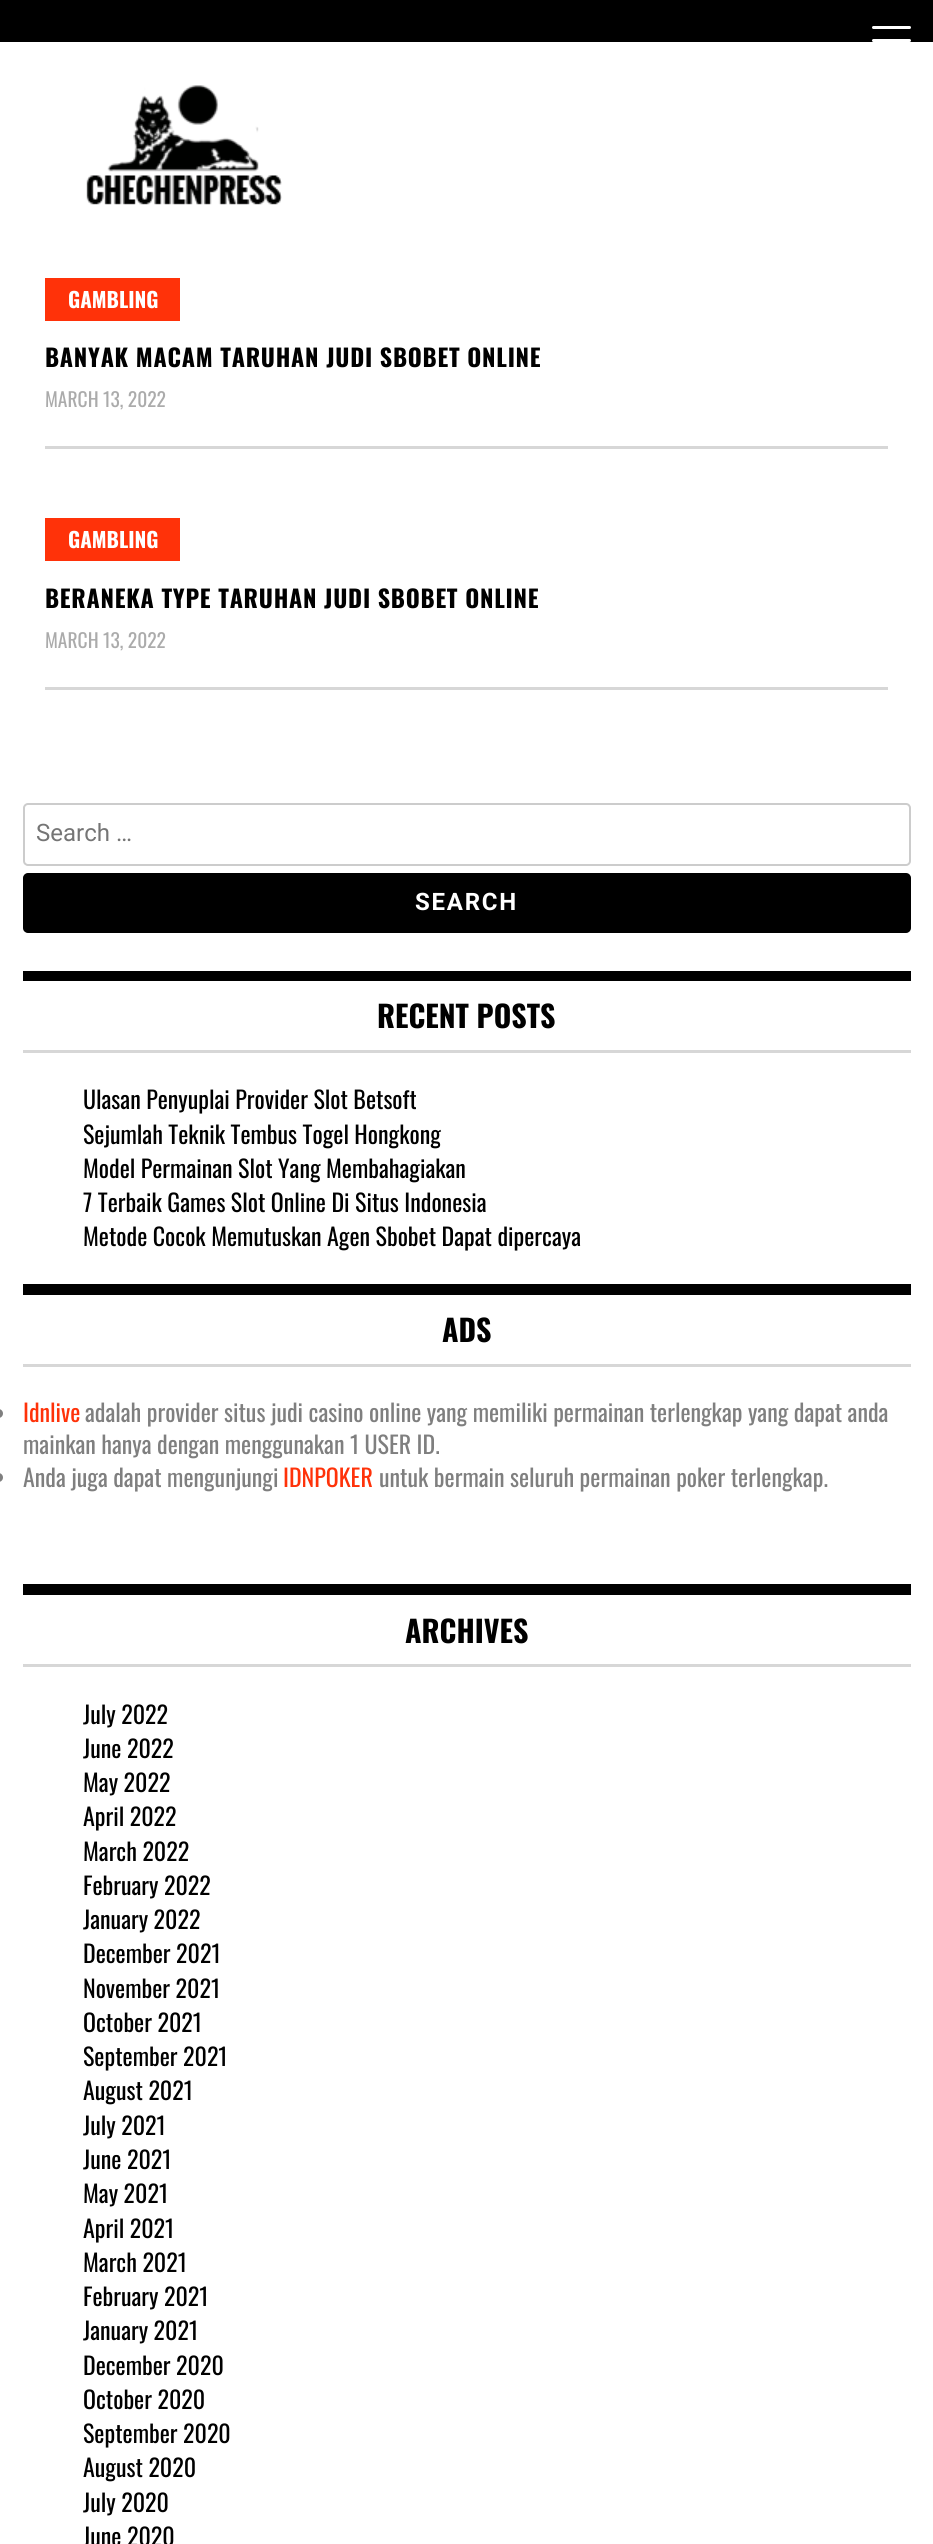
#include <cairo/cairo.h>
#include <math.h>
#include <stddef.h>


static void draw_spaced(cairo_t *cr, double x, double y, const char *s, double letter, double word) {
  cairo_move_to(cr, x, y);
  while (*s) {
    char ch[5] = {0};
    int n = 0;
    do ch[n++] = *s++; while ((*s & 0xC0) == 0x80);
    cairo_show_text(cr, ch);
    cairo_rel_move_to(cr, letter + word * (*ch == ' '), 0);
  }
}

static void rounded_rect(cairo_t *cr, double x, double y, double w, double h, double r) {
  cairo_new_sub_path(cr);
  cairo_arc(cr, x + w - r, y + h - r, r, 0, M_PI / 2);
  cairo_arc(cr, x + r, y + h - r, r, M_PI / 2, M_PI);
  cairo_arc(cr, x + r, y + r, r, M_PI, 1.5 * M_PI);
  cairo_arc(cr, x + w - r, y + r, r, 1.5 * M_PI, 2 * M_PI);
  cairo_close_path(cr);
}

static void draw_image(cairo_t *cr, const char *path, double x, double y, double w, double h) {
  cairo_surface_t *image = cairo_image_surface_create_from_png(path);
  cairo_save(cr);
  cairo_set_source_surface(cr, image, x, y);
  cairo_rectangle(cr, x, y, w, h);
  cairo_fill(cr);
  cairo_restore(cr);
  cairo_surface_destroy(image);
}

static void draw(cairo_t *cr) {
  cairo_set_source_rgb(cr, 1, 1, 1);
  cairo_paint(cr);
  cairo_set_source_rgb(cr, 0, 0, 0);
  cairo_rectangle(cr, 0, 0, 933, 42);
  cairo_fill(cr);
  cairo_set_source_rgb(cr, 1, 1, 1);
  rounded_rect(cr, 872, 39, 39, 3, 1.5);
  cairo_fill(cr);
  rounded_rect(cr, 872, 26, 39, 3, 1.5);
  cairo_fill(cr);
  draw_image(cr, "images/1.png", 86, 85, 196, 120);
  cairo_set_source_rgb(cr, 215 / 255.0, 215 / 255.0, 215 / 255.0);
  cairo_rectangle(cr, 45, 446, 843, 3);
  cairo_fill(cr);
  cairo_set_source_rgb(cr, 1, 50 / 255.0, 9 / 255.0);
  cairo_rectangle(cr, 45, 278, 135, 43);
  cairo_fill(cr);
  cairo_set_source_rgb(cr, 215 / 255.0, 215 / 255.0, 215 / 255.0);
  cairo_rectangle(cr, 45, 687, 843, 3);
  cairo_fill(cr);
  cairo_set_source_rgb(cr, 1, 50 / 255.0, 9 / 255.0);
  cairo_rectangle(cr, 45, 518, 135, 43);
  cairo_fill(cr);
  rounded_rect(cr, 24, 804, 886, 61, 4);
  cairo_set_source_rgb(cr, 204 / 255.0, 204 / 255.0, 204 / 255.0);
  cairo_stroke(cr);
  cairo_set_source_rgb(cr, 0, 0, 0);
  rounded_rect(cr, 24, 874, 886, 58, 4);
  cairo_fill_preserve(cr);
  cairo_stroke(cr);
  cairo_rectangle(cr, 23, 971, 888, 10);
  cairo_fill(cr);
  cairo_set_source_rgb(cr, 215 / 255.0, 215 / 255.0, 215 / 255.0);
  cairo_rectangle(cr, 23, 1050, 888, 3);
  cairo_fill(cr);
  cairo_set_source_rgb(cr, 0, 0, 0);
  cairo_rectangle(cr, 23, 1284, 888, 11);
  cairo_fill(cr);
  cairo_set_source_rgb(cr, 215 / 255.0, 215 / 255.0, 215 / 255.0);
  cairo_rectangle(cr, 23, 1364, 888, 3);
  cairo_fill(cr);
  cairo_set_source_rgb(cr, 127 / 255.0, 127 / 255.0, 127 / 255.0);
  rounded_rect(cr, -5, 1409, 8, 9, 4.5);
  cairo_fill(cr);
  rounded_rect(cr, -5, 1473, 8, 9, 4.5);
  cairo_fill(cr);
  cairo_set_source_rgb(cr, 0, 0, 0);
  cairo_rectangle(cr, 23, 1584, 888, 11);
  cairo_fill(cr);
  cairo_set_source_rgb(cr, 215 / 255.0, 215 / 255.0, 215 / 255.0);
  cairo_rectangle(cr, 23, 1664, 888, 3);
  cairo_fill(cr);
  cairo_select_font_face(cr, "Oswald", CAIRO_FONT_SLANT_NORMAL, CAIRO_FONT_WEIGHT_BOLD);
  cairo_set_font_size(cr, 21);
  cairo_set_source_rgb(cr, 1, 1, 1);
  cairo_move_to(cr, 68, 308);
  cairo_show_text(cr, "GAMBLING");
  cairo_set_font_size(cr, 24);
  cairo_set_source_rgb(cr, 0, 0, 0);
  draw_spaced(cr, 45, 367, "BANYAK MACAM TARUHAN JUDI SBOBET ONLINE", 0.75, 0);
  cairo_select_font_face(cr, "Oswald", CAIRO_FONT_SLANT_NORMAL, CAIRO_FONT_WEIGHT_NORMAL);
  cairo_set_font_size(cr, 19.5);
  cairo_set_source_rgb(cr, 171 / 255.0, 171 / 255.0, 171 / 255.0);
  cairo_move_to(cr, 45, 407);
  cairo_show_text(cr, "MARCH 13, 2022");
  cairo_select_font_face(cr, "Oswald", CAIRO_FONT_SLANT_NORMAL, CAIRO_FONT_WEIGHT_BOLD);
  cairo_set_font_size(cr, 21);
  cairo_set_source_rgb(cr, 1, 1, 1);
  cairo_move_to(cr, 68, 548);
  cairo_show_text(cr, "GAMBLING");
  cairo_set_font_size(cr, 24);
  cairo_set_source_rgb(cr, 0, 0, 0);
  draw_spaced(cr, 45, 608, "BERANEKA TYPE TARUHAN JUDI SBOBET ONLINE", 0.75, 0);
  cairo_select_font_face(cr, "Oswald", CAIRO_FONT_SLANT_NORMAL, CAIRO_FONT_WEIGHT_NORMAL);
  cairo_set_font_size(cr, 19.5);
  cairo_set_source_rgb(cr, 171 / 255.0, 171 / 255.0, 171 / 255.0);
  cairo_move_to(cr, 45, 648);
  cairo_show_text(cr, "MARCH 13, 2022");
  cairo_select_font_face(cr, "Roboto", CAIRO_FONT_SLANT_NORMAL, CAIRO_FONT_WEIGHT_NORMAL);
  cairo_set_font_size(cr, 24);
  cairo_set_source_rgb(cr, 117 / 255.0, 117 / 255.0, 117 / 255.0);
  cairo_move_to(cr, 36, 841);
  cairo_show_text(cr, "Search …");
  cairo_select_font_face(cr, "Roboto", CAIRO_FONT_SLANT_NORMAL, CAIRO_FONT_WEIGHT_BOLD);
  cairo_set_source_rgb(cr, 1, 1, 1);
  draw_spaced(cr, 415, 910, "SEARCH", 1.75, 0);
  cairo_select_font_face(cr, "Oswald", CAIRO_FONT_SLANT_NORMAL, CAIRO_FONT_WEIGHT_BOLD);
  cairo_set_font_size(cr, 30);
  cairo_set_source_rgb(cr, 0, 0, 0);
  cairo_move_to(cr, 377, 1028);
  cairo_show_text(cr, "RECENT POSTS");
  cairo_select_font_face(cr, "Oswald", CAIRO_FONT_SLANT_NORMAL, CAIRO_FONT_WEIGHT_NORMAL);
  cairo_set_font_size(cr, 24);
  cairo_move_to(cr, 83, 1109);
  cairo_show_text(cr, "Ulasan Penyuplai Provider Slot Betsoft");
  cairo_move_to(cr, 83, 1144);
  cairo_show_text(cr, "Sejumlah Teknik Tembus Togel Hongkong");
  cairo_move_to(cr, 83, 1178);
  cairo_show_text(cr, "Model Permainan Slot Yang Membahagiakan");
  cairo_move_to(cr, 83, 1212);
  cairo_show_text(cr, "7 Terbaik Games Slot Online Di Situs Indonesia");
  cairo_move_to(cr, 83, 1246);
  cairo_show_text(cr, "Metode Cocok Memutuskan Agen Sbobet Dapat dipercaya");
  cairo_select_font_face(cr, "Oswald", CAIRO_FONT_SLANT_NORMAL, CAIRO_FONT_WEIGHT_BOLD);
  cairo_set_font_size(cr, 30);
  cairo_move_to(cr, 442, 1342);
  cairo_show_text(cr, "ADS");
  cairo_select_font_face(cr, "Oswald", CAIRO_FONT_SLANT_NORMAL, CAIRO_FONT_WEIGHT_NORMAL);
  cairo_set_font_size(cr, 24);
  cairo_set_source_rgb(cr, 1, 50 / 255.0, 9 / 255.0);
  cairo_move_to(cr, 23, 1422);
  cairo_show_text(cr, "Idnlive");
  cairo_set_source_rgb(cr, 127 / 255.0, 127 / 255.0, 127 / 255.0);
  cairo_move_to(cr, 85, 1422);
  cairo_show_text(cr, "adalah provider situs judi casino online yang memiliki permainan terlengkap yang dapat anda");
  cairo_move_to(cr, 23, 1454);
  cairo_show_text(cr, "mainkan hanya dengan menggunakan 1 USER ID.");
  cairo_move_to(cr, 23, 1487);
  cairo_show_text(cr, "Anda juga dapat mengunjungi");
  cairo_set_source_rgb(cr, 1, 50 / 255.0, 9 / 255.0);
  cairo_move_to(cr, 283, 1487);
  cairo_show_text(cr, "IDNPOKER");
  cairo_set_source_rgb(cr, 127 / 255.0, 127 / 255.0, 127 / 255.0);
  cairo_move_to(cr, 379, 1487);
  cairo_show_text(cr, "untuk bermain seluruh permainan poker terlengkap.");
  cairo_select_font_face(cr, "Oswald", CAIRO_FONT_SLANT_NORMAL, CAIRO_FONT_WEIGHT_BOLD);
  cairo_set_font_size(cr, 30);
  cairo_set_source_rgb(cr, 0, 0, 0);
  cairo_move_to(cr, 405, 1643);
  cairo_show_text(cr, "ARCHIVES");
  cairo_select_font_face(cr, "Oswald", CAIRO_FONT_SLANT_NORMAL, CAIRO_FONT_WEIGHT_NORMAL);
  cairo_set_font_size(cr, 24);
  cairo_move_to(cr, 83, 1724);
  cairo_show_text(cr, "July 2022");
  cairo_move_to(cr, 83, 1758);
  cairo_show_text(cr, "June 2022");
  cairo_move_to(cr, 83, 1792);
  cairo_show_text(cr, "May 2022");
  cairo_move_to(cr, 83, 1826);
  cairo_show_text(cr, "April 2022");
  cairo_move_to(cr, 83, 1861);
  cairo_show_text(cr, "March 2022");
  cairo_move_to(cr, 83, 1895);
  cairo_show_text(cr, "February 2022");
  cairo_move_to(cr, 83, 1929);
  cairo_show_text(cr, "January 2022");
  cairo_move_to(cr, 83, 1963);
  cairo_show_text(cr, "December 2021");
  cairo_move_to(cr, 83, 1998);
  cairo_show_text(cr, "November 2021");
  cairo_move_to(cr, 83, 2032);
  cairo_show_text(cr, "October 2021");
  cairo_move_to(cr, 83, 2066);
  cairo_show_text(cr, "September 2021");
  cairo_move_to(cr, 83, 2100);
  cairo_show_text(cr, "August 2021");
  cairo_move_to(cr, 83, 2135);
  cairo_show_text(cr, "July 2021");
  cairo_move_to(cr, 83, 2169);
  cairo_show_text(cr, "June 2021");
  cairo_move_to(cr, 83, 2203);
  cairo_show_text(cr, "May 2021");
  cairo_move_to(cr, 83, 2238);
  cairo_show_text(cr, "April 2021");
  cairo_move_to(cr, 83, 2272);
  cairo_show_text(cr, "March 2021");
  cairo_move_to(cr, 83, 2306);
  cairo_show_text(cr, "February 2021");
  cairo_move_to(cr, 83, 2340);
  cairo_show_text(cr, "January 2021");
  cairo_move_to(cr, 83, 2375);
  cairo_show_text(cr, "December 2020");
  cairo_move_to(cr, 83, 2409);
  cairo_show_text(cr, "October 2020");
  cairo_move_to(cr, 83, 2443);
  cairo_show_text(cr, "September 2020");
  cairo_move_to(cr, 83, 2477);
  cairo_show_text(cr, "August 2020");
  cairo_move_to(cr, 83, 2512);
  cairo_show_text(cr, "July 2020");
  cairo_move_to(cr, 83, 2546);
  cairo_show_text(cr, "June 2020");
}

int main(void) {
  cairo_surface_t *surface = cairo_image_surface_create(CAIRO_FORMAT_RGB24, 933, 2544);
  cairo_t *cr = cairo_create(surface);
  cairo_font_options_t *options = cairo_font_options_create();
  cairo_font_options_set_hint_metrics(options, CAIRO_HINT_METRICS_OFF);
  cairo_font_options_set_hint_style(options, CAIRO_HINT_STYLE_NONE);
  cairo_set_font_options(cr, options);
  cairo_set_miter_limit(cr, 4);
  draw(cr);
  cairo_surface_write_to_png(surface, "out.png");
  cairo_font_options_destroy(options);
  cairo_destroy(cr);
  cairo_surface_destroy(surface);
  return 0;
}
